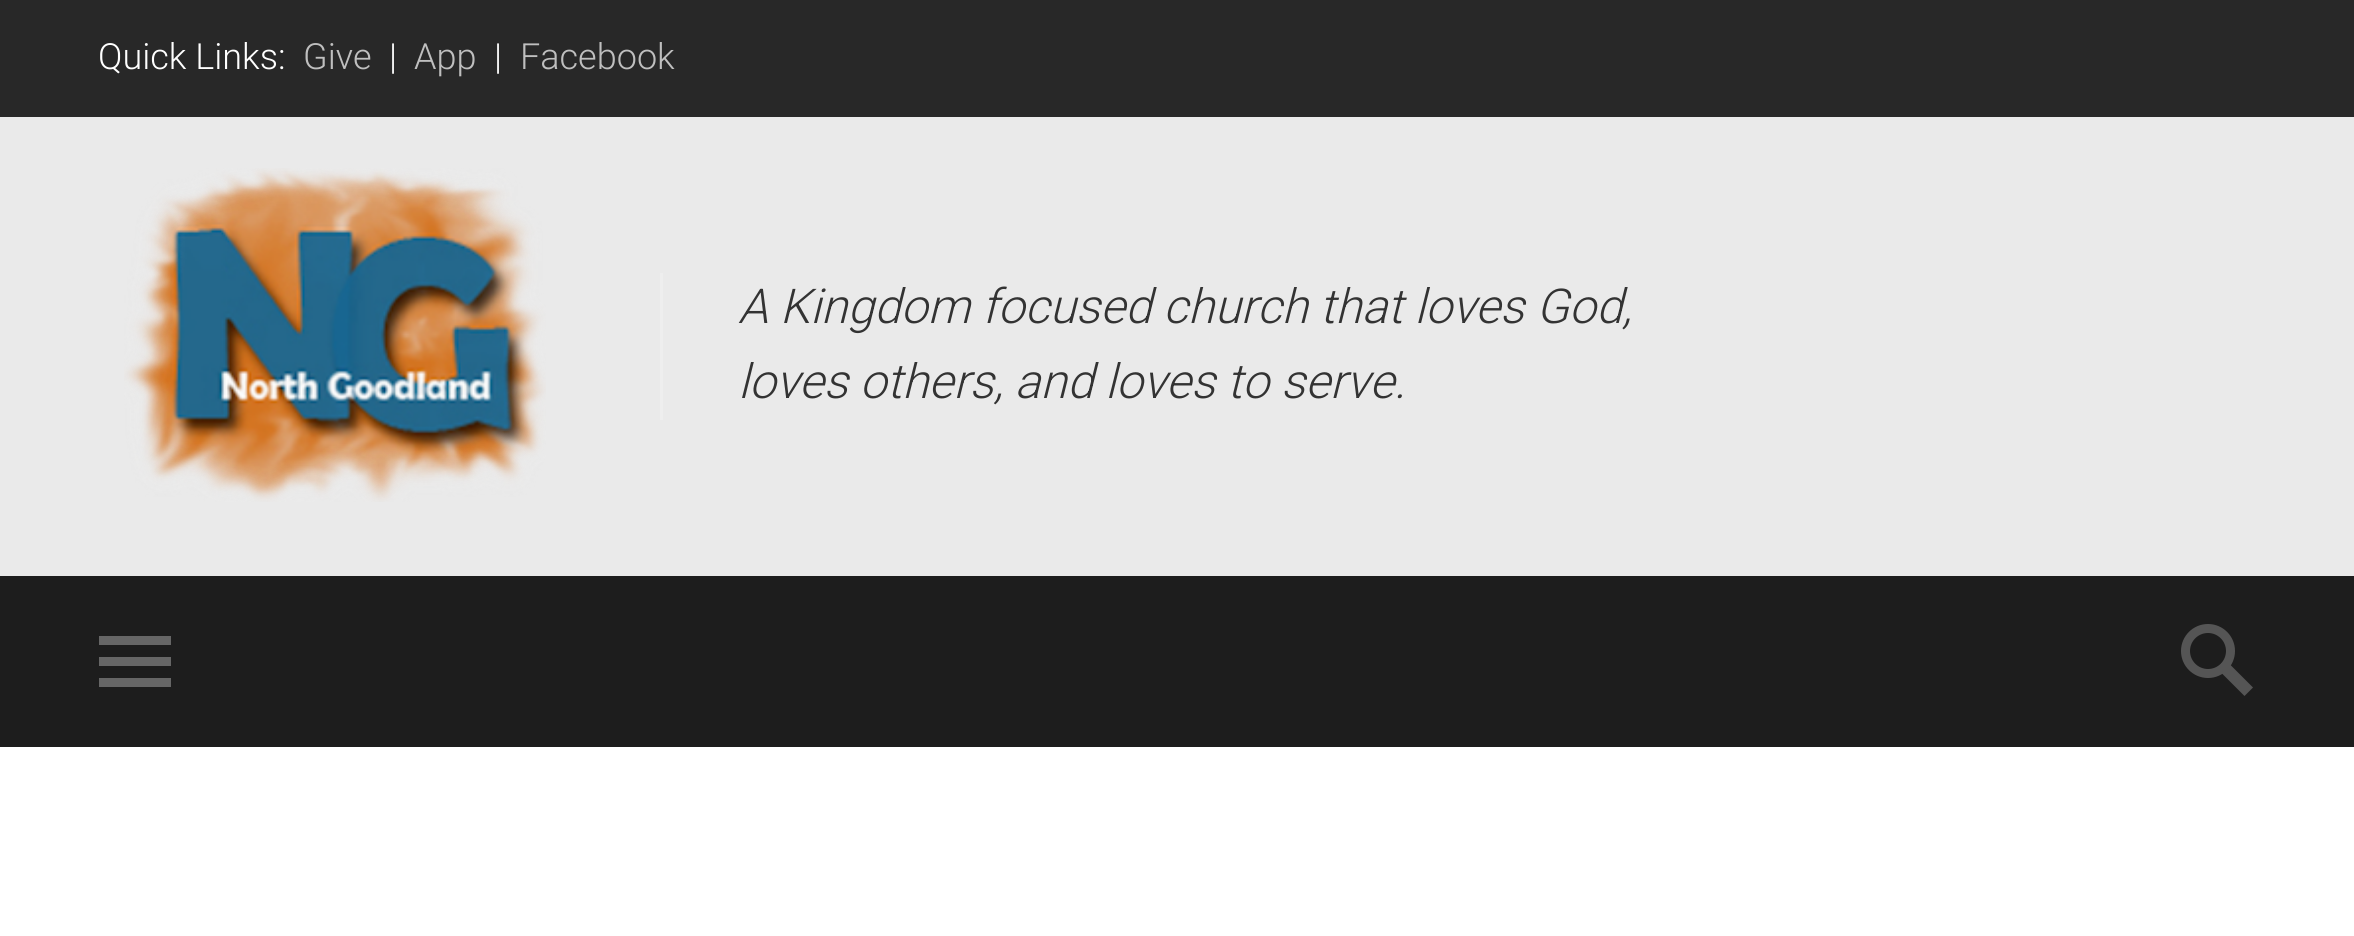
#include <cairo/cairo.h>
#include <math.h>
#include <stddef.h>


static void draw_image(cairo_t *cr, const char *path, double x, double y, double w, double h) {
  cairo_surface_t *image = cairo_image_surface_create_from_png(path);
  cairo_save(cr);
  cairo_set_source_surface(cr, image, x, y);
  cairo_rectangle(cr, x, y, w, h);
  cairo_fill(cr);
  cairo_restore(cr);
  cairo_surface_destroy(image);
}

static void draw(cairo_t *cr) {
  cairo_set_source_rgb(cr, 1, 1, 1);
  cairo_paint(cr);
  cairo_set_source_rgb(cr, 40 / 255.0, 40 / 255.0, 40 / 255.0);
  cairo_rectangle(cr, 0, 0, 2354, 117);
  cairo_fill(cr);
  cairo_set_source_rgb(cr, 234 / 255.0, 234 / 255.0, 234 / 255.0);
  cairo_rectangle(cr, 0, 117, 2354, 459);
  cairo_fill(cr);
  draw_image(cr, "images/1.png", 124, 168, 422, 334);
  cairo_set_source_rgb(cr, 238 / 255.0, 238 / 255.0, 238 / 255.0);
  cairo_rectangle(cr, 660, 273, 3, 147);
  cairo_fill(cr);
  cairo_set_source_rgb(cr, 29 / 255.0, 29 / 255.0, 29 / 255.0);
  cairo_rectangle(cr, 0, 576, 2354, 171);
  cairo_fill(cr);
  cairo_set_source_rgb(cr, 102 / 255.0, 102 / 255.0, 102 / 255.0);
  cairo_rectangle(cr, 99, 636, 72, 9);
  cairo_fill(cr);
  cairo_rectangle(cr, 99, 657, 72, 9);
  cairo_fill(cr);
  cairo_rectangle(cr, 99, 678, 72, 9);
  cairo_fill(cr);
  cairo_set_source_rgb(cr, 85 / 255.0, 85 / 255.0, 85 / 255.0);
  cairo_arc(cr, 2208, 651, 27, 0, 2 * M_PI);
  cairo_fill(cr);
  cairo_set_source_rgb(cr, 29 / 255.0, 29 / 255.0, 29 / 255.0);
  cairo_arc(cr, 2208, 651, 18, 0, 2 * M_PI);
  cairo_fill(cr);
  cairo_set_source_rgb(cr, 85 / 255.0, 85 / 255.0, 85 / 255.0);
  cairo_new_path(cr);
  cairo_move_to(cr, 2229.5, 664);
  cairo_line_to(cr, 2253, 687.5);
  cairo_line_to(cr, 2244.5, 696);
  cairo_line_to(cr, 2221, 672.5);
  cairo_curve_to(cr, 2219, 670.5, 2219, 666.5, 2221, 664);
  cairo_curve_to(cr, 2223.5, 662, 2227.5, 662, 2229.5, 664);
  cairo_close_path(cr);
  cairo_fill(cr);
  cairo_select_font_face(cr, "Roboto Light", CAIRO_FONT_SLANT_NORMAL, CAIRO_FONT_WEIGHT_NORMAL);
  cairo_set_font_size(cr, 36);
  cairo_set_source_rgb(cr, 1, 1, 1);
  cairo_move_to(cr, 98, 69);
  cairo_show_text(cr, "Quick Links:");
  cairo_set_source_rgb(cr, 191 / 255.0, 191 / 255.0, 191 / 255.0);
  cairo_move_to(cr, 303, 69);
  cairo_show_text(cr, "Give");
  cairo_set_source_rgb(cr, 1, 1, 1);
  cairo_move_to(cr, 389, 69);
  cairo_show_text(cr, "|");
  cairo_set_source_rgb(cr, 191 / 255.0, 191 / 255.0, 191 / 255.0);
  cairo_move_to(cr, 414, 69);
  cairo_show_text(cr, "App");
  cairo_set_source_rgb(cr, 1, 1, 1);
  cairo_move_to(cr, 494, 69);
  cairo_show_text(cr, "|");
  cairo_set_source_rgb(cr, 191 / 255.0, 191 / 255.0, 191 / 255.0);
  cairo_move_to(cr, 520, 69);
  cairo_show_text(cr, "Facebook");
  cairo_select_font_face(cr, "Roboto Light", CAIRO_FONT_SLANT_ITALIC, CAIRO_FONT_WEIGHT_NORMAL);
  cairo_set_font_size(cr, 48);
  cairo_set_source_rgb(cr, 51 / 255.0, 51 / 255.0, 51 / 255.0);
  cairo_move_to(cr, 738, 323);
  cairo_show_text(cr, "A Kingdom focused church that loves God,");
  cairo_move_to(cr, 738, 398);
  cairo_show_text(cr, "loves others, and loves to serve.");
}

int main(void) {
  cairo_surface_t *surface = cairo_image_surface_create(CAIRO_FORMAT_RGB24, 2354, 936);
  cairo_t *cr = cairo_create(surface);
  cairo_font_options_t *options = cairo_font_options_create();
  cairo_font_options_set_hint_metrics(options, CAIRO_HINT_METRICS_OFF);
  cairo_font_options_set_hint_style(options, CAIRO_HINT_STYLE_NONE);
  cairo_set_font_options(cr, options);
  cairo_set_miter_limit(cr, 4);
  draw(cr);
  cairo_surface_write_to_png(surface, "out.png");
  cairo_font_options_destroy(options);
  cairo_destroy(cr);
  cairo_surface_destroy(surface);
  return 0;
}
